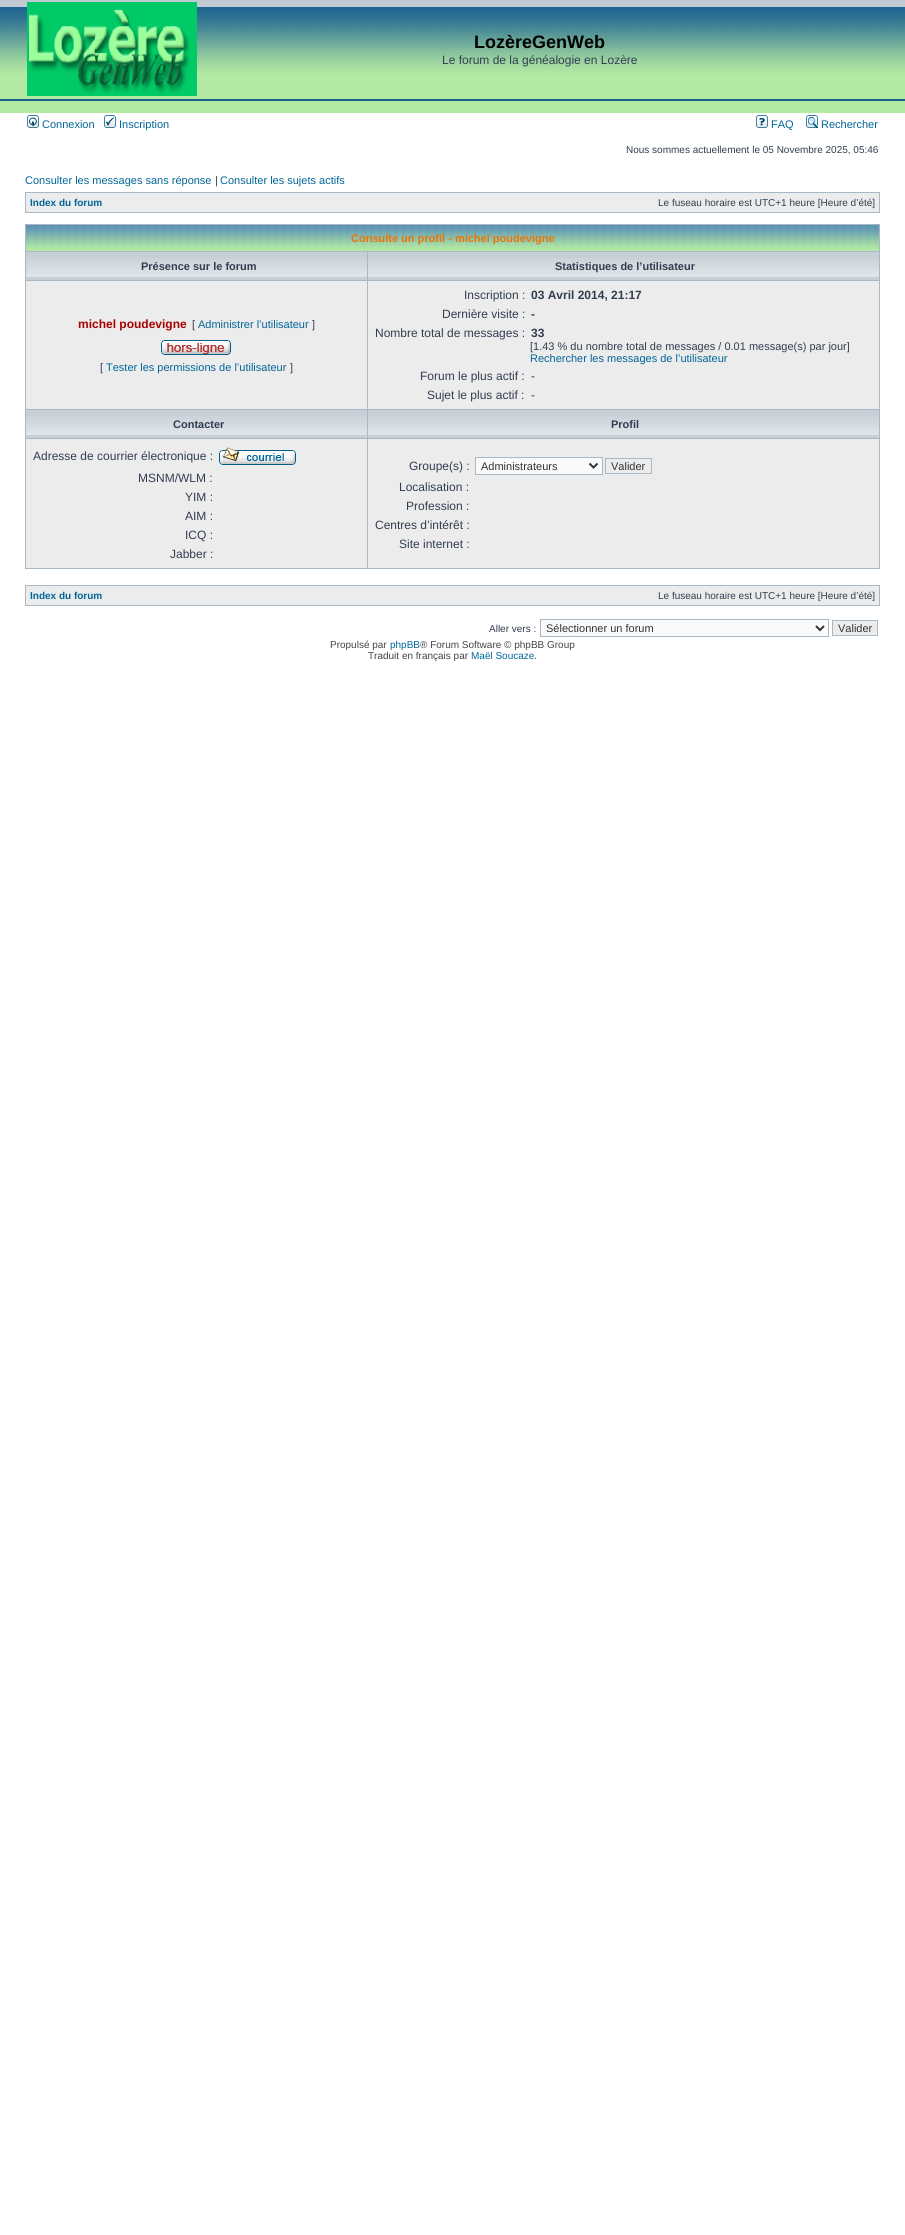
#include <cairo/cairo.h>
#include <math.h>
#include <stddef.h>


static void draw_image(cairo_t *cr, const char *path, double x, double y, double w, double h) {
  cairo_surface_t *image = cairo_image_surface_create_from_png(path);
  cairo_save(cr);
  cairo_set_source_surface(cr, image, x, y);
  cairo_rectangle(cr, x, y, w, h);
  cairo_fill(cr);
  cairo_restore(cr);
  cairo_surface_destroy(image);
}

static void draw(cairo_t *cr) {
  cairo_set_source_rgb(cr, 1, 1, 1);
  cairo_paint(cr);
  cairo_set_source_rgb(cr, 193 / 255.0, 202 / 255.0, 210 / 255.0);
  cairo_rectangle(cr, 0, 0, 905, 7);
  cairo_fill(cr);
  draw_image(cr, "images/1.png", 0, 7, 905, 106);
  draw_image(cr, "images/2.png", 27, 2, 170, 94);
  draw_image(cr, "images/3.png", 27, 115, 12, 13);
  draw_image(cr, "images/4.png", 104, 115, 12, 13);
  draw_image(cr, "images/5.png", 756, 115, 12, 13);
  draw_image(cr, "images/6.png", 806, 115, 12, 13);
  cairo_set_source_rgb(cr, 169 / 255.0, 184 / 255.0, 194 / 255.0);
  cairo_rectangle(cr, 25, 192, 855, 21);
  cairo_fill(cr);
  cairo_set_source_rgb(cr, 236 / 255.0, 236 / 255.0, 236 / 255.0);
  cairo_rectangle(cr, 26, 193, 853, 19);
  cairo_fill(cr);
  cairo_set_source_rgb(cr, 169 / 255.0, 184 / 255.0, 194 / 255.0);
  cairo_rectangle(cr, 25, 224, 855, 345);
  cairo_fill(cr);
  draw_image(cr, "images/7.png", 26, 225, 853, 26);
  cairo_set_source_rgb(cr, 199 / 255.0, 208 / 255.0, 215 / 255.0);
  cairo_rectangle(cr, 26, 252, 341, 28);
  cairo_fill(cr);
  draw_image(cr, "images/8.png", 26, 258, 341, 19);
  cairo_rectangle(cr, 368, 252, 511, 28);
  cairo_fill(cr);
  draw_image(cr, "images/9.png", 368, 258, 511, 19);
  cairo_set_source_rgb(cr, 236 / 255.0, 236 / 255.0, 236 / 255.0);
  cairo_rectangle(cr, 26, 281, 341, 128);
  cairo_fill(cr);
  draw_image(cr, "images/10.png", 161, 340, 70, 15);
  cairo_rectangle(cr, 368, 281, 511, 128);
  cairo_fill(cr);
  cairo_set_source_rgb(cr, 199 / 255.0, 208 / 255.0, 215 / 255.0);
  cairo_rectangle(cr, 26, 410, 341, 28);
  cairo_fill(cr);
  draw_image(cr, "images/8.png", 26, 416, 341, 19);
  cairo_rectangle(cr, 368, 410, 511, 28);
  cairo_fill(cr);
  draw_image(cr, "images/9.png", 368, 416, 511, 19);
  cairo_set_source_rgb(cr, 236 / 255.0, 236 / 255.0, 236 / 255.0);
  cairo_rectangle(cr, 26, 439, 341, 129);
  cairo_fill(cr);
  draw_image(cr, "images/11.png", 219, 447, 77, 18);
  cairo_rectangle(cr, 368, 439, 511, 129);
  cairo_fill(cr);
  cairo_set_source_rgb(cr, 250 / 255.0, 250 / 255.0, 250 / 255.0);
  cairo_rectangle(cr, 475.5, 457.5, 127, 17);
  cairo_fill_preserve(cr);
  cairo_set_source_rgb(cr, 169 / 255.0, 184 / 255.0, 194 / 255.0);
  cairo_set_line_width(cr, 1);
  cairo_stroke(cr);
  cairo_new_path(cr);
  cairo_move_to(cr, 589.5, 463.5);
  cairo_line_to(cr, 593.5, 467.5);
  cairo_line_to(cr, 597.5, 463.5);
  cairo_set_source_rgb(cr, 51 / 255.0, 51 / 255.0, 51 / 255.0);
  cairo_set_line_width(cr, 2);
  cairo_stroke(cr);
  cairo_rectangle(cr, 605.5, 458.5, 46, 15);
  cairo_set_source_rgb(cr, 169 / 255.0, 184 / 255.0, 194 / 255.0);
  cairo_set_line_width(cr, 1);
  cairo_stroke(cr);
  cairo_rectangle(cr, 25, 585, 855, 21);
  cairo_fill(cr);
  cairo_set_source_rgb(cr, 236 / 255.0, 236 / 255.0, 236 / 255.0);
  cairo_rectangle(cr, 26, 586, 853, 19);
  cairo_fill(cr);
  cairo_set_source_rgb(cr, 250 / 255.0, 250 / 255.0, 250 / 255.0);
  cairo_rectangle(cr, 540.5, 619.5, 288, 17);
  cairo_fill_preserve(cr);
  cairo_set_source_rgb(cr, 169 / 255.0, 184 / 255.0, 194 / 255.0);
  cairo_stroke(cr);
  cairo_new_path(cr);
  cairo_move_to(cr, 816, 626);
  cairo_line_to(cr, 820, 630);
  cairo_line_to(cr, 824, 626);
  cairo_set_source_rgb(cr, 51 / 255.0, 51 / 255.0, 51 / 255.0);
  cairo_set_line_width(cr, 2);
  cairo_stroke(cr);
  cairo_set_source_rgb(cr, 236 / 255.0, 236 / 255.0, 236 / 255.0);
  cairo_rectangle(cr, 832.5, 620.5, 45, 15);
  cairo_fill_preserve(cr);
  cairo_set_source_rgb(cr, 169 / 255.0, 184 / 255.0, 194 / 255.0);
  cairo_set_line_width(cr, 1);
  cairo_stroke(cr);
  cairo_select_font_face(cr, "Liberation Sans", CAIRO_FONT_SLANT_NORMAL, CAIRO_FONT_WEIGHT_BOLD);
  cairo_set_font_size(cr, 18);
  cairo_set_source_rgb(cr, 0, 0, 0);
  cairo_move_to(cr, 474, 48);
  cairo_show_text(cr, "LozèreGenWeb");
  cairo_select_font_face(cr, "Liberation Sans", CAIRO_FONT_SLANT_NORMAL, CAIRO_FONT_WEIGHT_NORMAL);
  cairo_set_font_size(cr, 12);
  cairo_set_source_rgb(cr, 50 / 255.0, 61 / 255.0, 79 / 255.0);
  cairo_move_to(cr, 442, 64);
  cairo_show_text(cr, "Le forum de la généalogie en Lozère");
  cairo_set_font_size(cr, 11);
  cairo_set_source_rgb(cr, 0, 101 / 255.0, 151 / 255.0);
  cairo_move_to(cr, 42, 128);
  cairo_show_text(cr, "Connexion");
  cairo_move_to(cr, 119, 128);
  cairo_show_text(cr, "Inscription");
  cairo_move_to(cr, 771, 128);
  cairo_show_text(cr, "FAQ");
  cairo_move_to(cr, 821, 128);
  cairo_show_text(cr, "Rechercher");
  cairo_set_font_size(cr, 10);
  cairo_set_source_rgb(cr, 50 / 255.0, 61 / 255.0, 79 / 255.0);
  cairo_move_to(cr, 626, 153);
  cairo_show_text(cr, "Nous sommes actuellement le 05 Novembre 2025, 05:46");
  cairo_set_font_size(cr, 11);
  cairo_set_source_rgb(cr, 0, 101 / 255.0, 151 / 255.0);
  cairo_move_to(cr, 25, 184);
  cairo_show_text(cr, "Consulter les messages sans réponse");
  cairo_set_source_rgb(cr, 50 / 255.0, 61 / 255.0, 79 / 255.0);
  cairo_move_to(cr, 215, 184);
  cairo_show_text(cr, "|");
  cairo_set_source_rgb(cr, 0, 101 / 255.0, 151 / 255.0);
  cairo_move_to(cr, 220, 184);
  cairo_show_text(cr, "Consulter les sujets actifs");
  cairo_select_font_face(cr, "Liberation Sans", CAIRO_FONT_SLANT_NORMAL, CAIRO_FONT_WEIGHT_BOLD);
  cairo_set_font_size(cr, 10);
  cairo_move_to(cr, 30, 206);
  cairo_show_text(cr, "Index du forum");
  cairo_select_font_face(cr, "Liberation Sans", CAIRO_FONT_SLANT_NORMAL, CAIRO_FONT_WEIGHT_NORMAL);
  cairo_set_source_rgb(cr, 50 / 255.0, 61 / 255.0, 79 / 255.0);
  cairo_move_to(cr, 658, 206);
  cairo_show_text(cr, "Le fuseau horaire est UTC+1 heure [Heure d’été]");
  cairo_select_font_face(cr, "Liberation Sans", CAIRO_FONT_SLANT_NORMAL, CAIRO_FONT_WEIGHT_BOLD);
  cairo_set_font_size(cr, 11);
  cairo_set_source_rgb(cr, 236 / 255.0, 116 / 255.0, 7 / 255.0);
  cairo_move_to(cr, 351, 242);
  cairo_show_text(cr, "Consulte un profil - michel poudevigne");
  cairo_set_source_rgb(cr, 50 / 255.0, 61 / 255.0, 79 / 255.0);
  cairo_move_to(cr, 141, 270);
  cairo_show_text(cr, "Présence sur le forum");
  cairo_move_to(cr, 555, 270);
  cairo_show_text(cr, "Statistiques de l’utilisateur");
  cairo_set_font_size(cr, 12);
  cairo_set_source_rgb(cr, 170 / 255.0, 0, 0);
  cairo_move_to(cr, 78, 328);
  cairo_show_text(cr, "michel poudevigne");
  cairo_select_font_face(cr, "Liberation Sans", CAIRO_FONT_SLANT_NORMAL, CAIRO_FONT_WEIGHT_NORMAL);
  cairo_set_font_size(cr, 11);
  cairo_set_source_rgb(cr, 50 / 255.0, 61 / 255.0, 79 / 255.0);
  cairo_move_to(cr, 192, 328);
  cairo_show_text(cr, "[");
  cairo_set_source_rgb(cr, 0, 101 / 255.0, 151 / 255.0);
  cairo_move_to(cr, 198, 328);
  cairo_show_text(cr, "Administrer l’utilisateur");
  cairo_set_source_rgb(cr, 50 / 255.0, 61 / 255.0, 79 / 255.0);
  cairo_move_to(cr, 312, 328);
  cairo_show_text(cr, "]");
  cairo_move_to(cr, 100, 371);
  cairo_show_text(cr, "[");
  cairo_set_source_rgb(cr, 0, 101 / 255.0, 151 / 255.0);
  cairo_move_to(cr, 106, 371);
  cairo_show_text(cr, "Tester les permissions de l’utilisateur");
  cairo_set_source_rgb(cr, 50 / 255.0, 61 / 255.0, 79 / 255.0);
  cairo_move_to(cr, 290, 371);
  cairo_show_text(cr, "]");
  cairo_set_font_size(cr, 12);
  cairo_move_to(cr, 464, 299);
  cairo_show_text(cr, "Inscription :");
  cairo_select_font_face(cr, "Liberation Sans", CAIRO_FONT_SLANT_NORMAL, CAIRO_FONT_WEIGHT_BOLD);
  cairo_move_to(cr, 531, 299);
  cairo_show_text(cr, "03 Avril 2014, 21:17");
  cairo_select_font_face(cr, "Liberation Sans", CAIRO_FONT_SLANT_NORMAL, CAIRO_FONT_WEIGHT_NORMAL);
  cairo_move_to(cr, 442, 318);
  cairo_show_text(cr, "Dernière visite :");
  cairo_select_font_face(cr, "Liberation Sans", CAIRO_FONT_SLANT_NORMAL, CAIRO_FONT_WEIGHT_BOLD);
  cairo_move_to(cr, 531, 318);
  cairo_show_text(cr, "-");
  cairo_select_font_face(cr, "Liberation Sans", CAIRO_FONT_SLANT_NORMAL, CAIRO_FONT_WEIGHT_NORMAL);
  cairo_move_to(cr, 375, 337);
  cairo_show_text(cr, "Nombre total de messages :");
  cairo_select_font_face(cr, "Liberation Sans", CAIRO_FONT_SLANT_NORMAL, CAIRO_FONT_WEIGHT_BOLD);
  cairo_move_to(cr, 531, 337);
  cairo_show_text(cr, "33");
  cairo_select_font_face(cr, "Liberation Sans", CAIRO_FONT_SLANT_NORMAL, CAIRO_FONT_WEIGHT_NORMAL);
  cairo_set_font_size(cr, 11);
  cairo_move_to(cr, 530, 350);
  cairo_show_text(cr, "[1.43 % du nombre total de messages / 0.01 message(s) par jour]");
  cairo_set_source_rgb(cr, 0, 101 / 255.0, 151 / 255.0);
  cairo_move_to(cr, 530, 362);
  cairo_show_text(cr, "Rechercher les messages de l’utilisateur");
  cairo_set_font_size(cr, 12);
  cairo_set_source_rgb(cr, 50 / 255.0, 61 / 255.0, 79 / 255.0);
  cairo_move_to(cr, 420, 380);
  cairo_show_text(cr, "Forum le plus actif :");
  cairo_move_to(cr, 531, 380);
  cairo_show_text(cr, "-");
  cairo_move_to(cr, 427, 399);
  cairo_show_text(cr, "Sujet le plus actif :");
  cairo_move_to(cr, 531, 399);
  cairo_show_text(cr, "-");
  cairo_select_font_face(cr, "Liberation Sans", CAIRO_FONT_SLANT_NORMAL, CAIRO_FONT_WEIGHT_BOLD);
  cairo_set_font_size(cr, 11);
  cairo_move_to(cr, 173, 428);
  cairo_show_text(cr, "Contacter");
  cairo_move_to(cr, 611, 428);
  cairo_show_text(cr, "Profil");
  cairo_select_font_face(cr, "Liberation Sans", CAIRO_FONT_SLANT_NORMAL, CAIRO_FONT_WEIGHT_NORMAL);
  cairo_set_font_size(cr, 12);
  cairo_move_to(cr, 33, 460);
  cairo_show_text(cr, "Adresse de courrier électronique :");
  cairo_move_to(cr, 138, 482);
  cairo_show_text(cr, "MSNM/WLM :");
  cairo_move_to(cr, 185, 501);
  cairo_show_text(cr, "YIM :");
  cairo_move_to(cr, 185, 520);
  cairo_show_text(cr, "AIM :");
  cairo_move_to(cr, 185, 539);
  cairo_show_text(cr, "ICQ :");
  cairo_move_to(cr, 170, 558);
  cairo_show_text(cr, "Jabber :");
  cairo_move_to(cr, 409, 470);
  cairo_show_text(cr, "Groupe(s) :");
  cairo_set_font_size(cr, 11);
  cairo_set_source_rgb(cr, 51 / 255.0, 51 / 255.0, 51 / 255.0);
  cairo_move_to(cr, 481, 470);
  cairo_show_text(cr, "Administrateurs");
  cairo_move_to(cr, 611, 470);
  cairo_show_text(cr, "Valider");
  cairo_set_font_size(cr, 12);
  cairo_set_source_rgb(cr, 50 / 255.0, 61 / 255.0, 79 / 255.0);
  cairo_move_to(cr, 399, 491);
  cairo_show_text(cr, "Localisation :");
  cairo_move_to(cr, 406, 510);
  cairo_show_text(cr, "Profession :");
  cairo_move_to(cr, 375, 529);
  cairo_show_text(cr, "Centres d’intérêt :");
  cairo_move_to(cr, 399, 548);
  cairo_show_text(cr, "Site internet :");
  cairo_select_font_face(cr, "Liberation Sans", CAIRO_FONT_SLANT_NORMAL, CAIRO_FONT_WEIGHT_BOLD);
  cairo_set_font_size(cr, 10);
  cairo_set_source_rgb(cr, 0, 101 / 255.0, 151 / 255.0);
  cairo_move_to(cr, 30, 599);
  cairo_show_text(cr, "Index du forum");
  cairo_select_font_face(cr, "Liberation Sans", CAIRO_FONT_SLANT_NORMAL, CAIRO_FONT_WEIGHT_NORMAL);
  cairo_set_source_rgb(cr, 50 / 255.0, 61 / 255.0, 79 / 255.0);
  cairo_move_to(cr, 658, 599);
  cairo_show_text(cr, "Le fuseau horaire est UTC+1 heure [Heure d’été]");
  cairo_move_to(cr, 489, 632);
  cairo_show_text(cr, "Aller vers :");
  cairo_set_font_size(cr, 11);
  cairo_set_source_rgb(cr, 51 / 255.0, 51 / 255.0, 51 / 255.0);
  cairo_move_to(cr, 546, 632);
  cairo_show_text(cr, "Sélectionner un forum");
  cairo_move_to(cr, 838, 632);
  cairo_show_text(cr, "Valider");
  cairo_set_font_size(cr, 10);
  cairo_set_source_rgb(cr, 68 / 255.0, 68 / 255.0, 68 / 255.0);
  cairo_move_to(cr, 330, 648);
  cairo_show_text(cr, "Propulsé par");
  cairo_set_source_rgb(cr, 0, 101 / 255.0, 151 / 255.0);
  cairo_move_to(cr, 390, 648);
  cairo_show_text(cr, "phpBB");
  cairo_set_source_rgb(cr, 68 / 255.0, 68 / 255.0, 68 / 255.0);
  cairo_move_to(cr, 420, 648);
  cairo_show_text(cr, "® Forum Software © phpBB Group");
  cairo_move_to(cr, 368, 659);
  cairo_show_text(cr, "Traduit en français par");
  cairo_set_source_rgb(cr, 0, 101 / 255.0, 151 / 255.0);
  cairo_move_to(cr, 471, 659);
  cairo_show_text(cr, "Maël Soucaze");
  cairo_set_source_rgb(cr, 68 / 255.0, 68 / 255.0, 68 / 255.0);
  cairo_move_to(cr, 534, 659);
  cairo_show_text(cr, ".");
}

int main(void) {
  cairo_surface_t *surface = cairo_image_surface_create(CAIRO_FORMAT_RGB24, 905, 2235);
  cairo_t *cr = cairo_create(surface);
  cairo_font_options_t *options = cairo_font_options_create();
  cairo_font_options_set_hint_metrics(options, CAIRO_HINT_METRICS_OFF);
  cairo_font_options_set_hint_style(options, CAIRO_HINT_STYLE_NONE);
  cairo_set_font_options(cr, options);
  cairo_set_miter_limit(cr, 4);
  draw(cr);
  cairo_surface_write_to_png(surface, "out.png");
  cairo_font_options_destroy(options);
  cairo_destroy(cr);
  cairo_surface_destroy(surface);
  return 0;
}
